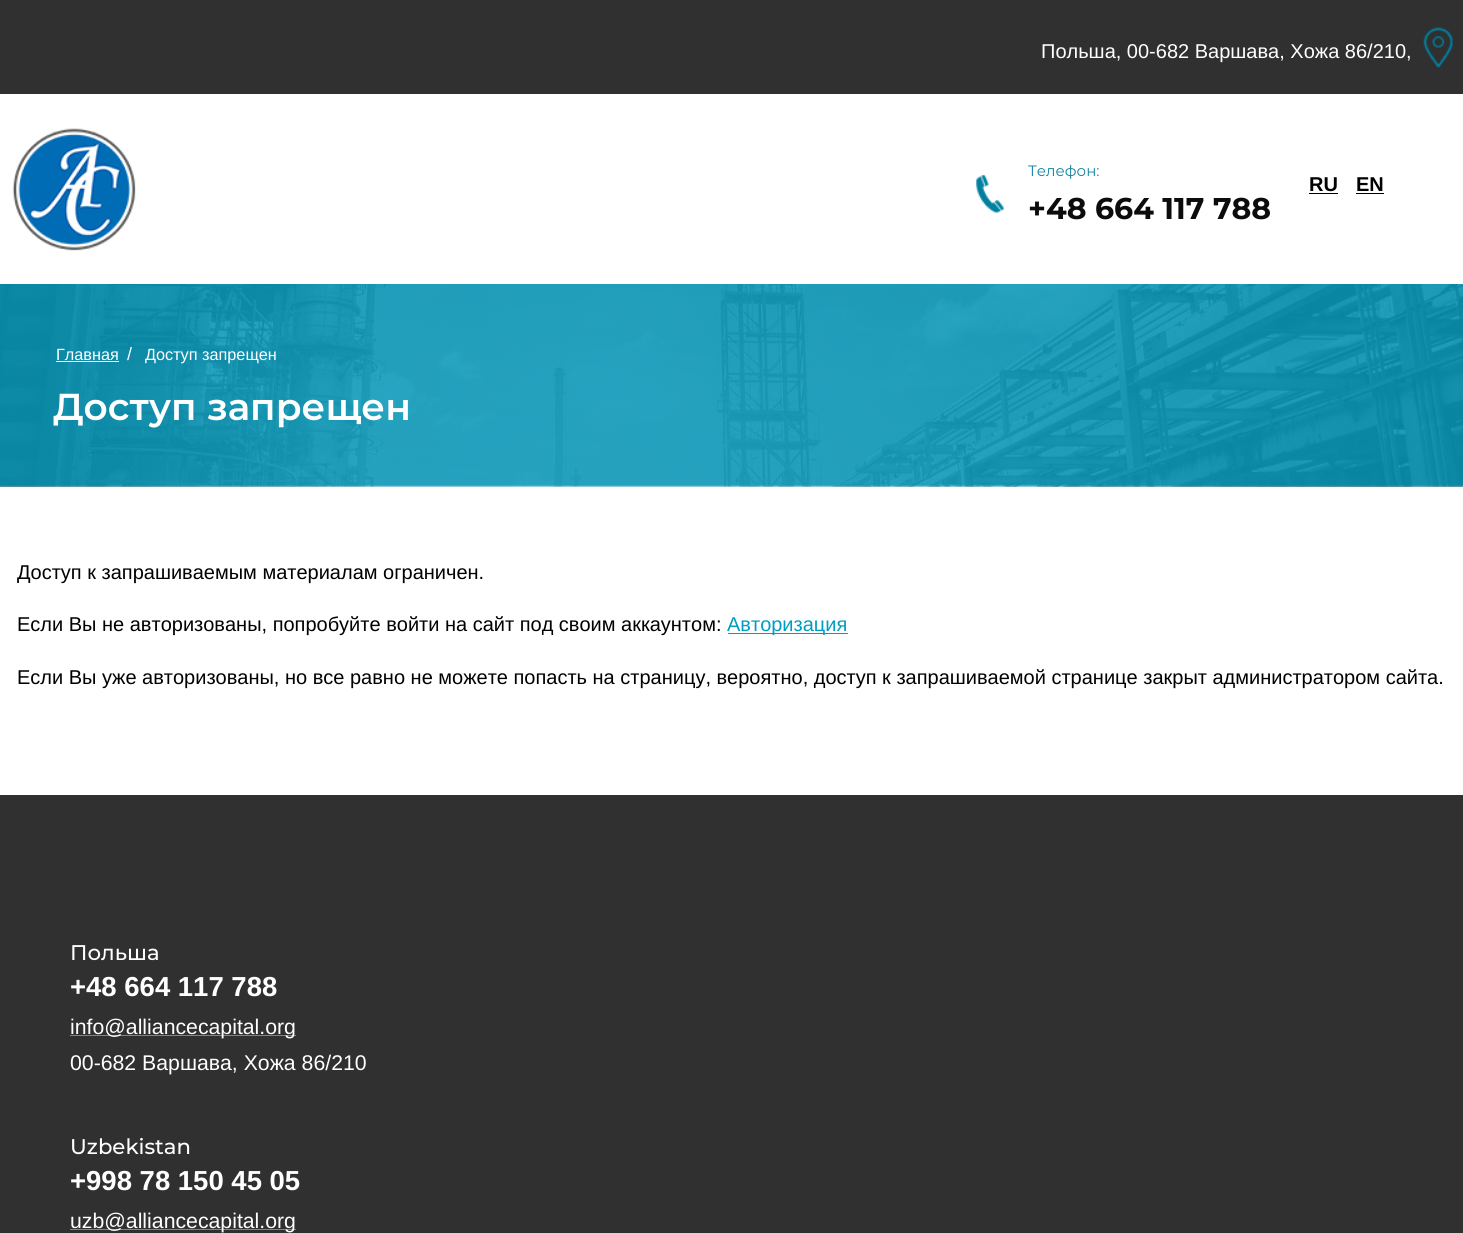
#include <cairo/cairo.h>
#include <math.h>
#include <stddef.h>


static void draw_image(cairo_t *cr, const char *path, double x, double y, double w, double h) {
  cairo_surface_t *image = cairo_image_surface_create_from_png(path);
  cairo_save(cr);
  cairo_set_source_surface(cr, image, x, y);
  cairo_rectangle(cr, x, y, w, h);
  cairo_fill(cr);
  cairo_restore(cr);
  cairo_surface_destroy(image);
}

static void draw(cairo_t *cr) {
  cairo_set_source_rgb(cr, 48 / 255.0, 48 / 255.0, 48 / 255.0);
  cairo_paint(cr);
  draw_image(cr, "images/1.png", 1423, 27, 30, 41);
  cairo_set_source_rgb(cr, 1, 1, 1);
  cairo_rectangle(cr, 0, 94, 1463, 701);
  cairo_fill(cr);
  draw_image(cr, "images/2.png", 12, 128, 124, 123);
  draw_image(cr, "images/3.png", 976, 174, 28, 39);
  cairo_set_source_rgb(cr, 0, 0, 0);
  cairo_rectangle(cr, 1309, 193, 29, 1);
  cairo_fill(cr);
  cairo_rectangle(cr, 1356, 193, 28, 1);
  cairo_fill(cr);
  draw_image(cr, "images/4.png", 0, 284, 1463, 203);
  cairo_set_source_rgb(cr, 1, 1, 1);
  cairo_rectangle(cr, 56, 361, 63, 1);
  cairo_fill(cr);
  cairo_set_source_rgb(cr, 0, 157 / 255.0, 194 / 255.0);
  cairo_rectangle(cr, 728, 633, 120, 1);
  cairo_fill(cr);
  cairo_set_source_rgb(cr, 7 / 255.0, 184 / 255.0, 200 / 255.0);
  cairo_rectangle(cr, 70, 1035, 226, 1);
  cairo_fill(cr);
  cairo_rectangle(cr, 70, 1229, 226, 1);
  cairo_fill(cr);
  cairo_select_font_face(cr, "Liberation Sans", CAIRO_FONT_SLANT_NORMAL, CAIRO_FONT_WEIGHT_NORMAL);
  cairo_set_font_size(cr, 20);
  cairo_set_source_rgb(cr, 1, 1, 1);
  cairo_move_to(cr, 1041, 58);
  cairo_show_text(cr, "Польша, 00-682 Варшава, Хожа 86/210,");
  cairo_select_font_face(cr, "Montserrat", CAIRO_FONT_SLANT_NORMAL, CAIRO_FONT_WEIGHT_NORMAL);
  cairo_set_font_size(cr, 15);
  cairo_set_source_rgb(cr, 20 / 255.0, 133 / 255.0, 159 / 255.0);
  cairo_move_to(cr, 1028, 176);
  cairo_show_text(cr, "Телефон:");
  cairo_select_font_face(cr, "Montserrat", CAIRO_FONT_SLANT_NORMAL, CAIRO_FONT_WEIGHT_BOLD);
  cairo_set_font_size(cr, 30);
  cairo_set_source_rgb(cr, 12 / 255.0, 12 / 255.0, 12 / 255.0);
  cairo_move_to(cr, 1028, 219);
  cairo_show_text(cr, "+48 664 117 788");
  cairo_select_font_face(cr, "Liberation Sans", CAIRO_FONT_SLANT_NORMAL, CAIRO_FONT_WEIGHT_BOLD);
  cairo_set_font_size(cr, 20);
  cairo_set_source_rgb(cr, 0, 0, 0);
  cairo_move_to(cr, 1309, 191);
  cairo_show_text(cr, "RU");
  cairo_move_to(cr, 1356, 191);
  cairo_show_text(cr, "EN");
  cairo_select_font_face(cr, "Liberation Sans", CAIRO_FONT_SLANT_NORMAL, CAIRO_FONT_WEIGHT_NORMAL);
  cairo_set_font_size(cr, 16.25);
  cairo_set_source_rgb(cr, 1, 1, 1);
  cairo_move_to(cr, 56, 360);
  cairo_show_text(cr, "Главная");
  cairo_set_font_size(cr, 18);
  cairo_move_to(cr, 127, 360);
  cairo_show_text(cr, "/");
  cairo_set_font_size(cr, 16.25);
  cairo_move_to(cr, 145, 360);
  cairo_show_text(cr, "Доступ запрещен");
  cairo_select_font_face(cr, "Montserrat SemiBold", CAIRO_FONT_SLANT_NORMAL, CAIRO_FONT_WEIGHT_NORMAL);
  cairo_set_font_size(cr, 37.5);
  cairo_move_to(cr, 53, 420);
  cairo_show_text(cr, "Доступ запрещен");
  cairo_select_font_face(cr, "Liberation Sans", CAIRO_FONT_SLANT_NORMAL, CAIRO_FONT_WEIGHT_NORMAL);
  cairo_set_font_size(cr, 20);
  cairo_set_source_rgb(cr, 0, 0, 0);
  cairo_move_to(cr, 17, 579);
  cairo_show_text(cr, "Доступ к запрашиваемым материалам ограничен.");
  cairo_move_to(cr, 17, 631);
  cairo_show_text(cr, "Если Вы не авторизованы, попробуйте войти на сайт под своим аккаунтом:");
  cairo_set_source_rgb(cr, 0, 157 / 255.0, 194 / 255.0);
  cairo_move_to(cr, 727, 631);
  cairo_show_text(cr, "Авторизация");
  cairo_set_source_rgb(cr, 0, 0, 0);
  cairo_move_to(cr, 17, 684);
  cairo_show_text(cr, "Если Вы уже авторизованы, но все равно не можете попасть на страницу, вероятно, доступ к запрашиваемой странице закрыт администратором сайта.");
  cairo_select_font_face(cr, "Montserrat Medium", CAIRO_FONT_SLANT_NORMAL, CAIRO_FONT_WEIGHT_NORMAL);
  cairo_set_font_size(cr, 21.25);
  cairo_set_source_rgb(cr, 1, 1, 1);
  cairo_move_to(cr, 70, 960);
  cairo_show_text(cr, "Польша");
  cairo_select_font_face(cr, "Liberation Sans", CAIRO_FONT_SLANT_NORMAL, CAIRO_FONT_WEIGHT_BOLD);
  cairo_set_font_size(cr, 27.5);
  cairo_move_to(cr, 70, 996);
  cairo_show_text(cr, "+48 664 117 788");
  cairo_select_font_face(cr, "Liberation Sans", CAIRO_FONT_SLANT_NORMAL, CAIRO_FONT_WEIGHT_NORMAL);
  cairo_set_font_size(cr, 21.25);
  cairo_move_to(cr, 70, 1034);
  cairo_show_text(cr, "info@alliancecapital.org");
  cairo_move_to(cr, 70, 1070);
  cairo_show_text(cr, "00-682 Варшава, Хожа 86/210");
  cairo_select_font_face(cr, "Montserrat Medium", CAIRO_FONT_SLANT_NORMAL, CAIRO_FONT_WEIGHT_NORMAL);
  cairo_move_to(cr, 70, 1154);
  cairo_show_text(cr, "Uzbekistan");
  cairo_select_font_face(cr, "Liberation Sans", CAIRO_FONT_SLANT_NORMAL, CAIRO_FONT_WEIGHT_BOLD);
  cairo_set_font_size(cr, 27.5);
  cairo_move_to(cr, 70, 1190);
  cairo_show_text(cr, "+998 78 150 45 05");
  cairo_select_font_face(cr, "Liberation Sans", CAIRO_FONT_SLANT_NORMAL, CAIRO_FONT_WEIGHT_NORMAL);
  cairo_set_font_size(cr, 21.25);
  cairo_move_to(cr, 70, 1228);
  cairo_show_text(cr, "uzb@alliancecapital.org");
}

int main(void) {
  cairo_surface_t *surface = cairo_image_surface_create(CAIRO_FORMAT_RGB24, 1463, 1233);
  cairo_t *cr = cairo_create(surface);
  cairo_font_options_t *options = cairo_font_options_create();
  cairo_font_options_set_hint_metrics(options, CAIRO_HINT_METRICS_OFF);
  cairo_font_options_set_hint_style(options, CAIRO_HINT_STYLE_NONE);
  cairo_set_font_options(cr, options);
  cairo_set_miter_limit(cr, 4);
  draw(cr);
  cairo_surface_write_to_png(surface, "out.png");
  cairo_font_options_destroy(options);
  cairo_destroy(cr);
  cairo_surface_destroy(surface);
  return 0;
}
